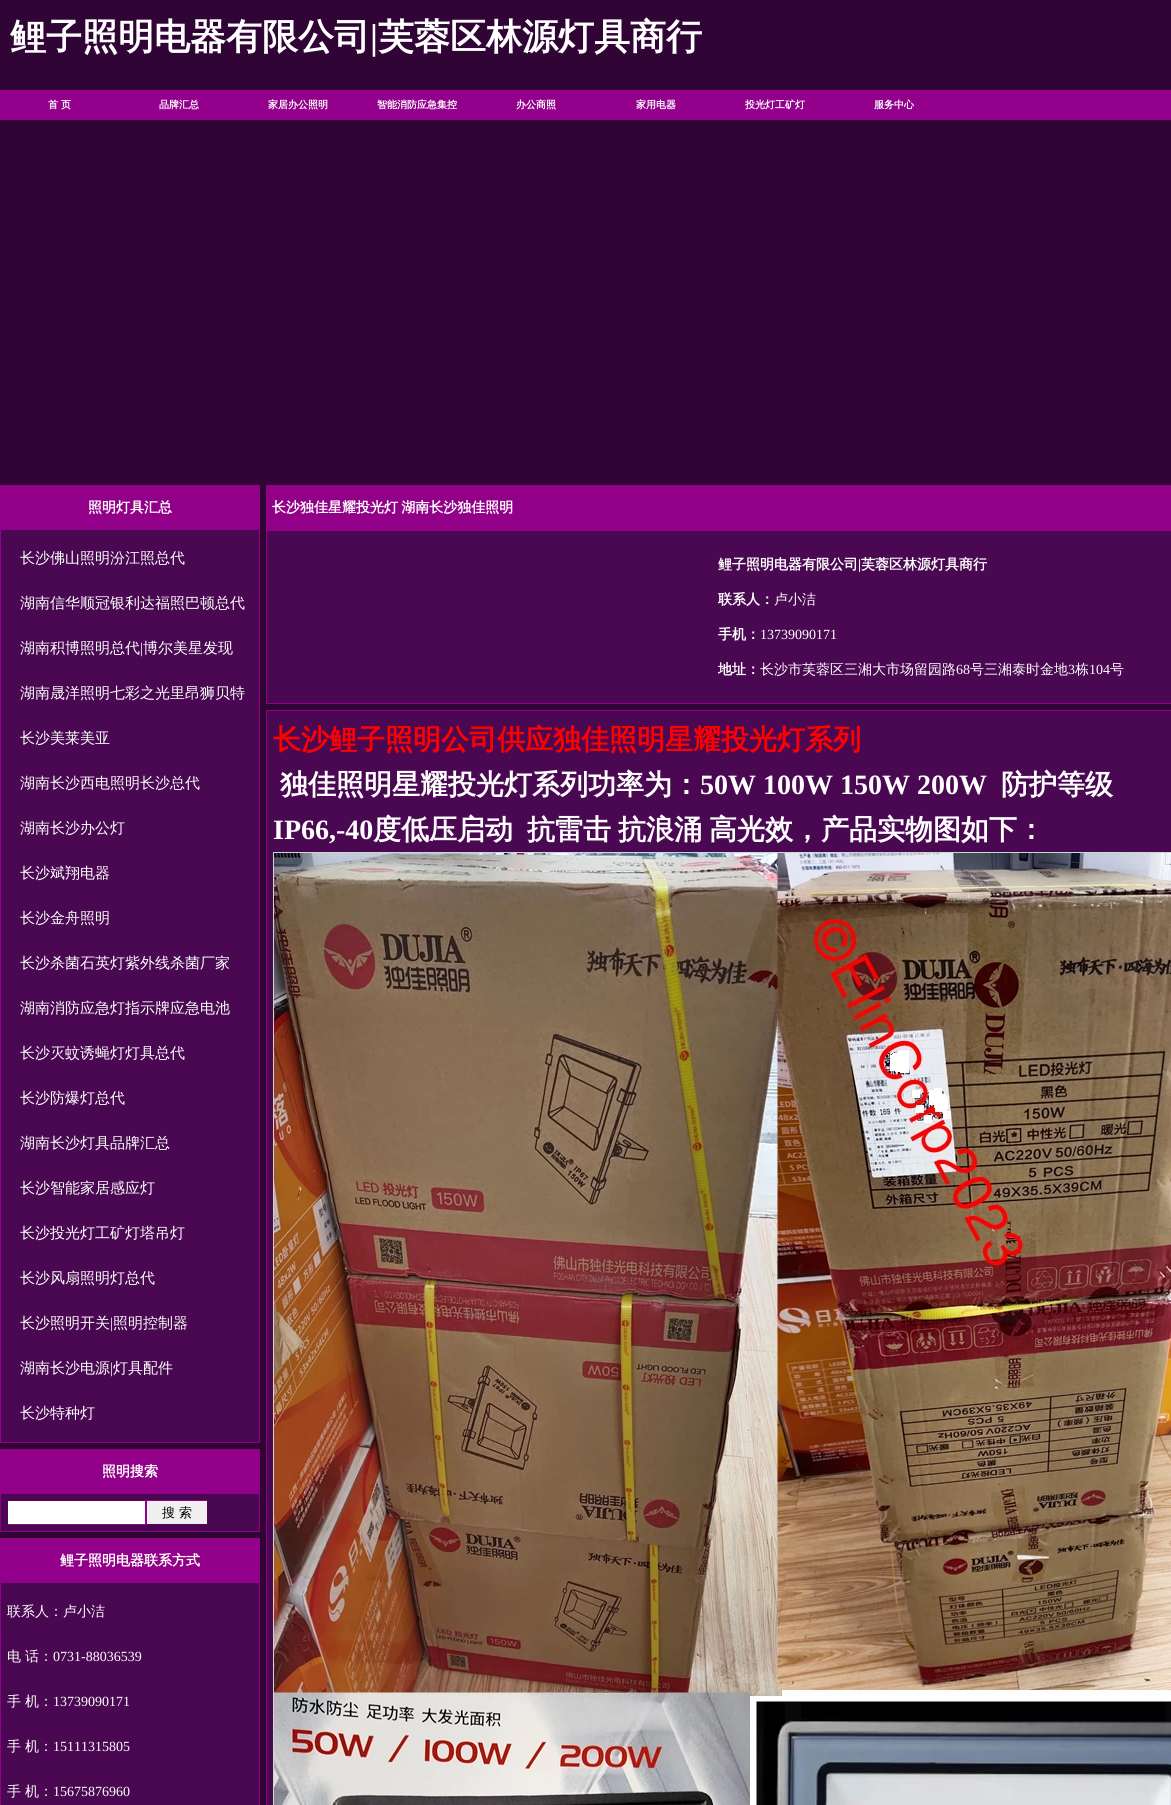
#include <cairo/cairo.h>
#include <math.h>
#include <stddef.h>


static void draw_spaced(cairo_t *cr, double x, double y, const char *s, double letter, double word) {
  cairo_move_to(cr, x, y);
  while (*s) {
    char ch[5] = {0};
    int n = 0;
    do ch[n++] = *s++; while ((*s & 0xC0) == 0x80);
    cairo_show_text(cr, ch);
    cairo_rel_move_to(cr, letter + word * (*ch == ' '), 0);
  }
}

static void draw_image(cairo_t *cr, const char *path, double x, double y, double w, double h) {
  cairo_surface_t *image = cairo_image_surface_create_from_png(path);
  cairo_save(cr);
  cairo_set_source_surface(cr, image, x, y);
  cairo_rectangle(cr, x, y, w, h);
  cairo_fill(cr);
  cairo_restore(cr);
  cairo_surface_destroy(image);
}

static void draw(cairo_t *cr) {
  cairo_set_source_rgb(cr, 48 / 255.0, 5 / 255.0, 53 / 255.0);
  cairo_paint(cr);
  cairo_set_source_rgb(cr, 147 / 255.0, 0, 140 / 255.0);
  cairo_rectangle(cr, 0, 90, 1171, 30);
  cairo_fill(cr);
  cairo_set_source_rgb(cr, 146 / 255.0, 0, 137 / 255.0);
  cairo_rectangle(cr, 0, 485, 260, 45);
  cairo_fill(cr);
  cairo_set_source_rgb(cr, 74 / 255.0, 8 / 255.0, 82 / 255.0);
  cairo_rectangle(cr, 1, 530, 258, 912);
  cairo_fill(cr);
  cairo_set_source_rgb(cr, 146 / 255.0, 0, 137 / 255.0);
  cairo_rectangle(cr, 259, 530, 1, 913);
  cairo_fill(cr);
  cairo_rectangle(cr, 0, 1442, 260, 1);
  cairo_fill(cr);
  cairo_rectangle(cr, 0, 530, 1, 913);
  cairo_fill(cr);
  cairo_rectangle(cr, 0, 1449, 260, 45);
  cairo_fill(cr);
  cairo_set_source_rgb(cr, 74 / 255.0, 8 / 255.0, 82 / 255.0);
  cairo_rectangle(cr, 1, 1494, 258, 37);
  cairo_fill(cr);
  cairo_set_source_rgb(cr, 146 / 255.0, 0, 137 / 255.0);
  cairo_rectangle(cr, 259, 1494, 1, 38);
  cairo_fill(cr);
  cairo_rectangle(cr, 0, 1531, 260, 1);
  cairo_fill(cr);
  cairo_rectangle(cr, 0, 1494, 1, 38);
  cairo_fill(cr);
  cairo_set_source_rgb(cr, 1, 1, 1);
  cairo_rectangle(cr, 8, 1501, 137, 23);
  cairo_fill(cr);
  cairo_set_source_rgb(cr, 97 / 255.0, 0, 91 / 255.0);
  cairo_rectangle(cr, 7, 1500, 139, 1);
  cairo_fill(cr);
  cairo_set_source_rgb(cr, 146 / 255.0, 0, 137 / 255.0);
  cairo_rectangle(cr, 145, 1500, 1, 25);
  cairo_fill(cr);
  cairo_rectangle(cr, 7, 1524, 139, 1);
  cairo_fill(cr);
  cairo_set_source_rgb(cr, 97 / 255.0, 0, 91 / 255.0);
  cairo_rectangle(cr, 7, 1500, 1, 25);
  cairo_fill(cr);
  cairo_set_source_rgb(cr, 239 / 255.0, 239 / 255.0, 239 / 255.0);
  cairo_rectangle(cr, 147, 1501, 60, 23);
  cairo_fill(cr);
  cairo_set_source_rgb(cr, 146 / 255.0, 0, 137 / 255.0);
  cairo_rectangle(cr, 146, 1500, 62, 1);
  cairo_fill(cr);
  cairo_set_source_rgb(cr, 97 / 255.0, 0, 91 / 255.0);
  cairo_rectangle(cr, 207, 1500, 1, 25);
  cairo_fill(cr);
  cairo_rectangle(cr, 146, 1524, 62, 1);
  cairo_fill(cr);
  cairo_set_source_rgb(cr, 146 / 255.0, 0, 137 / 255.0);
  cairo_rectangle(cr, 146, 1500, 1, 25);
  cairo_fill(cr);
  cairo_rectangle(cr, 0, 1538, 260, 45);
  cairo_fill(cr);
  cairo_set_source_rgb(cr, 74 / 255.0, 8 / 255.0, 82 / 255.0);
  cairo_rectangle(cr, 1, 1583, 258, 222);
  cairo_fill(cr);
  cairo_set_source_rgb(cr, 146 / 255.0, 0, 137 / 255.0);
  cairo_rectangle(cr, 259, 1583, 1, 222);
  cairo_fill(cr);
  cairo_rectangle(cr, 0, 1583, 1, 222);
  cairo_fill(cr);
  cairo_rectangle(cr, 266, 485, 905, 45);
  cairo_fill(cr);
  cairo_set_source_rgb(cr, 74 / 255.0, 8 / 255.0, 82 / 255.0);
  cairo_rectangle(cr, 266.5, 530.5, 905, 173);
  cairo_fill_preserve(cr);
  cairo_set_source_rgb(cr, 146 / 255.0, 0, 137 / 255.0);
  cairo_set_line_width(cr, 1);
  cairo_stroke(cr);
  cairo_set_source_rgb(cr, 74 / 255.0, 8 / 255.0, 82 / 255.0);
  cairo_rectangle(cr, 266.5, 710.5, 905, 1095);
  cairo_fill_preserve(cr);
  cairo_set_source_rgb(cr, 146 / 255.0, 0, 137 / 255.0);
  cairo_stroke(cr);
  draw_image(cr, "images/1.png", 273, 852, 898, 953);
  cairo_select_font_face(cr, "WenQuanYi Zen Hei", CAIRO_FONT_SLANT_NORMAL, CAIRO_FONT_WEIGHT_BOLD);
  cairo_set_font_size(cr, 36);
  cairo_set_source_rgb(cr, 1, 1, 1);
  cairo_move_to(cr, 10, 49);
  cairo_show_text(cr, "鲤子照明电器有限公司");
  cairo_select_font_face(cr, "Liberation Serif", CAIRO_FONT_SLANT_NORMAL, CAIRO_FONT_WEIGHT_BOLD);
  cairo_move_to(cr, 370, 49);
  cairo_show_text(cr, "|");
  cairo_select_font_face(cr, "WenQuanYi Zen Hei", CAIRO_FONT_SLANT_NORMAL, CAIRO_FONT_WEIGHT_BOLD);
  cairo_move_to(cr, 378, 49);
  cairo_show_text(cr, "芙蓉区林源灯具商行");
  cairo_set_font_size(cr, 10);
  cairo_move_to(cr, 48, 108);
  cairo_show_text(cr, "首 页");
  cairo_move_to(cr, 159, 108);
  cairo_show_text(cr, "品牌汇总");
  cairo_move_to(cr, 268, 108);
  cairo_show_text(cr, "家居办公照明");
  cairo_move_to(cr, 377, 108);
  cairo_show_text(cr, "智能消防应急集控");
  cairo_move_to(cr, 516, 108);
  cairo_show_text(cr, "办公商照");
  cairo_move_to(cr, 636, 108);
  cairo_show_text(cr, "家用电器");
  cairo_move_to(cr, 745, 108);
  cairo_show_text(cr, "投光灯工矿灯");
  cairo_move_to(cr, 874, 108);
  cairo_show_text(cr, "服务中心");
  cairo_set_font_size(cr, 14);
  cairo_move_to(cr, 88, 512);
  cairo_show_text(cr, "照明灯具汇总");
  cairo_select_font_face(cr, "WenQuanYi Zen Hei Medium", CAIRO_FONT_SLANT_NORMAL, CAIRO_FONT_WEIGHT_NORMAL);
  cairo_set_font_size(cr, 15);
  cairo_move_to(cr, 20, 563);
  cairo_show_text(cr, "长沙佛山照明汾江照总代");
  cairo_move_to(cr, 20, 608);
  cairo_show_text(cr, "湖南信华顺冠银利达福照巴顿总代");
  cairo_move_to(cr, 20, 653);
  cairo_show_text(cr, "湖南积博照明总代");
  cairo_select_font_face(cr, "Liberation Serif", CAIRO_FONT_SLANT_NORMAL, CAIRO_FONT_WEIGHT_NORMAL);
  cairo_move_to(cr, 140, 653);
  cairo_show_text(cr, "|");
  cairo_select_font_face(cr, "WenQuanYi Zen Hei Medium", CAIRO_FONT_SLANT_NORMAL, CAIRO_FONT_WEIGHT_NORMAL);
  cairo_move_to(cr, 143, 653);
  cairo_show_text(cr, "博尔美星发现");
  cairo_move_to(cr, 20, 698);
  cairo_show_text(cr, "湖南晟洋照明七彩之光里昂狮贝特");
  cairo_move_to(cr, 20, 743);
  cairo_show_text(cr, "长沙美莱美亚");
  cairo_move_to(cr, 20, 788);
  cairo_show_text(cr, "湖南长沙西电照明长沙总代");
  cairo_move_to(cr, 20, 833);
  cairo_show_text(cr, "湖南长沙办公灯");
  cairo_move_to(cr, 20, 878);
  cairo_show_text(cr, "长沙斌翔电器");
  cairo_move_to(cr, 20, 923);
  cairo_show_text(cr, "长沙金舟照明");
  cairo_move_to(cr, 20, 968);
  cairo_show_text(cr, "长沙杀菌石英灯紫外线杀菌厂家");
  cairo_move_to(cr, 20, 1013);
  cairo_show_text(cr, "湖南消防应急灯指示牌应急电池");
  cairo_move_to(cr, 20, 1058);
  cairo_show_text(cr, "长沙灭蚊诱蝇灯灯具总代");
  cairo_move_to(cr, 20, 1103);
  cairo_show_text(cr, "长沙防爆灯总代");
  cairo_move_to(cr, 20, 1148);
  cairo_show_text(cr, "湖南长沙灯具品牌汇总");
  cairo_move_to(cr, 20, 1193);
  cairo_show_text(cr, "长沙智能家居感应灯");
  cairo_move_to(cr, 20, 1238);
  cairo_show_text(cr, "长沙投光灯工矿灯塔吊灯");
  cairo_move_to(cr, 20, 1283);
  cairo_show_text(cr, "长沙风扇照明灯总代");
  cairo_move_to(cr, 20, 1328);
  cairo_show_text(cr, "长沙照明开关");
  cairo_select_font_face(cr, "Liberation Serif", CAIRO_FONT_SLANT_NORMAL, CAIRO_FONT_WEIGHT_NORMAL);
  cairo_move_to(cr, 110, 1328);
  cairo_show_text(cr, "|");
  cairo_select_font_face(cr, "WenQuanYi Zen Hei Medium", CAIRO_FONT_SLANT_NORMAL, CAIRO_FONT_WEIGHT_NORMAL);
  cairo_move_to(cr, 113, 1328);
  cairo_show_text(cr, "照明控制器");
  cairo_move_to(cr, 20, 1373);
  cairo_show_text(cr, "湖南长沙电源");
  cairo_select_font_face(cr, "Liberation Serif", CAIRO_FONT_SLANT_NORMAL, CAIRO_FONT_WEIGHT_NORMAL);
  cairo_move_to(cr, 110, 1373);
  cairo_show_text(cr, "|");
  cairo_select_font_face(cr, "WenQuanYi Zen Hei Medium", CAIRO_FONT_SLANT_NORMAL, CAIRO_FONT_WEIGHT_NORMAL);
  cairo_move_to(cr, 113, 1373);
  cairo_show_text(cr, "灯具配件");
  cairo_move_to(cr, 20, 1418);
  cairo_show_text(cr, "长沙特种灯");
  cairo_select_font_face(cr, "WenQuanYi Zen Hei", CAIRO_FONT_SLANT_NORMAL, CAIRO_FONT_WEIGHT_BOLD);
  cairo_set_font_size(cr, 14);
  cairo_move_to(cr, 102, 1476);
  cairo_show_text(cr, "照明搜索");
  cairo_select_font_face(cr, "WenQuanYi Zen Hei Medium", CAIRO_FONT_SLANT_NORMAL, CAIRO_FONT_WEIGHT_NORMAL);
  cairo_set_font_size(cr, 13);
  cairo_set_source_rgb(cr, 0, 0, 0);
  cairo_move_to(cr, 162, 1517);
  cairo_show_text(cr, "搜 索");
  cairo_select_font_face(cr, "WenQuanYi Zen Hei", CAIRO_FONT_SLANT_NORMAL, CAIRO_FONT_WEIGHT_BOLD);
  cairo_set_font_size(cr, 14);
  cairo_set_source_rgb(cr, 1, 1, 1);
  cairo_move_to(cr, 60, 1565);
  cairo_show_text(cr, "鲤子照明电器联系方式");
  cairo_select_font_face(cr, "WenQuanYi Zen Hei Medium", CAIRO_FONT_SLANT_NORMAL, CAIRO_FONT_WEIGHT_NORMAL);
  cairo_move_to(cr, 7, 1616);
  cairo_show_text(cr, "联系人：卢小洁");
  cairo_move_to(cr, 7, 1661);
  cairo_show_text(cr, "电");
  cairo_move_to(cr, 25, 1661);
  cairo_show_text(cr, "话：");
  cairo_select_font_face(cr, "Liberation Serif", CAIRO_FONT_SLANT_NORMAL, CAIRO_FONT_WEIGHT_NORMAL);
  cairo_move_to(cr, 53, 1661);
  cairo_show_text(cr, "0731-88036539");
  cairo_select_font_face(cr, "WenQuanYi Zen Hei Medium", CAIRO_FONT_SLANT_NORMAL, CAIRO_FONT_WEIGHT_NORMAL);
  cairo_move_to(cr, 7, 1706);
  cairo_show_text(cr, "手");
  cairo_move_to(cr, 25, 1706);
  cairo_show_text(cr, "机：");
  cairo_select_font_face(cr, "Liberation Serif", CAIRO_FONT_SLANT_NORMAL, CAIRO_FONT_WEIGHT_NORMAL);
  cairo_move_to(cr, 53, 1706);
  cairo_show_text(cr, "13739090171");
  cairo_select_font_face(cr, "WenQuanYi Zen Hei Medium", CAIRO_FONT_SLANT_NORMAL, CAIRO_FONT_WEIGHT_NORMAL);
  cairo_move_to(cr, 7, 1751);
  cairo_show_text(cr, "手");
  cairo_move_to(cr, 25, 1751);
  cairo_show_text(cr, "机：");
  cairo_select_font_face(cr, "Liberation Serif", CAIRO_FONT_SLANT_NORMAL, CAIRO_FONT_WEIGHT_NORMAL);
  cairo_move_to(cr, 53, 1751);
  cairo_show_text(cr, "15111315805");
  cairo_select_font_face(cr, "WenQuanYi Zen Hei Medium", CAIRO_FONT_SLANT_NORMAL, CAIRO_FONT_WEIGHT_NORMAL);
  cairo_move_to(cr, 7, 1796);
  cairo_show_text(cr, "手");
  cairo_move_to(cr, 25, 1796);
  cairo_show_text(cr, "机：");
  cairo_select_font_face(cr, "Liberation Serif", CAIRO_FONT_SLANT_NORMAL, CAIRO_FONT_WEIGHT_NORMAL);
  cairo_move_to(cr, 53, 1796);
  cairo_show_text(cr, "15675876960");
  cairo_select_font_face(cr, "WenQuanYi Zen Hei", CAIRO_FONT_SLANT_NORMAL, CAIRO_FONT_WEIGHT_BOLD);
  draw_spaced(cr, 272, 512, "长沙独佳星耀投光灯 湖南长沙独佳照明", 0, -1);
  cairo_move_to(cr, 718, 569);
  cairo_show_text(cr, "鲤子照明电器有限公司");
  cairo_select_font_face(cr, "Liberation Serif", CAIRO_FONT_SLANT_NORMAL, CAIRO_FONT_WEIGHT_BOLD);
  cairo_move_to(cr, 858, 569);
  cairo_show_text(cr, "|");
  cairo_select_font_face(cr, "WenQuanYi Zen Hei", CAIRO_FONT_SLANT_NORMAL, CAIRO_FONT_WEIGHT_BOLD);
  cairo_move_to(cr, 861, 569);
  cairo_show_text(cr, "芙蓉区林源灯具商行");
  cairo_move_to(cr, 718, 604);
  cairo_show_text(cr, "联系人：");
  cairo_select_font_face(cr, "WenQuanYi Zen Hei Medium", CAIRO_FONT_SLANT_NORMAL, CAIRO_FONT_WEIGHT_NORMAL);
  cairo_move_to(cr, 774, 604);
  cairo_show_text(cr, "卢小洁");
  cairo_select_font_face(cr, "WenQuanYi Zen Hei", CAIRO_FONT_SLANT_NORMAL, CAIRO_FONT_WEIGHT_BOLD);
  cairo_move_to(cr, 718, 639);
  cairo_show_text(cr, "手机：");
  cairo_select_font_face(cr, "Liberation Serif", CAIRO_FONT_SLANT_NORMAL, CAIRO_FONT_WEIGHT_NORMAL);
  cairo_move_to(cr, 760, 639);
  cairo_show_text(cr, "13739090171");
  cairo_select_font_face(cr, "WenQuanYi Zen Hei", CAIRO_FONT_SLANT_NORMAL, CAIRO_FONT_WEIGHT_BOLD);
  cairo_move_to(cr, 718, 674);
  cairo_show_text(cr, "地址：");
  cairo_select_font_face(cr, "WenQuanYi Zen Hei Medium", CAIRO_FONT_SLANT_NORMAL, CAIRO_FONT_WEIGHT_NORMAL);
  cairo_move_to(cr, 760, 674);
  cairo_show_text(cr, "长沙市芙蓉区三湘大市场留园路");
  cairo_select_font_face(cr, "Liberation Serif", CAIRO_FONT_SLANT_NORMAL, CAIRO_FONT_WEIGHT_NORMAL);
  cairo_move_to(cr, 956, 674);
  cairo_show_text(cr, "68");
  cairo_select_font_face(cr, "WenQuanYi Zen Hei Medium", CAIRO_FONT_SLANT_NORMAL, CAIRO_FONT_WEIGHT_NORMAL);
  cairo_move_to(cr, 970, 674);
  cairo_show_text(cr, "号三湘泰时金地");
  cairo_select_font_face(cr, "Liberation Serif", CAIRO_FONT_SLANT_NORMAL, CAIRO_FONT_WEIGHT_NORMAL);
  cairo_move_to(cr, 1068, 674);
  cairo_show_text(cr, "3");
  cairo_select_font_face(cr, "WenQuanYi Zen Hei Medium", CAIRO_FONT_SLANT_NORMAL, CAIRO_FONT_WEIGHT_NORMAL);
  cairo_move_to(cr, 1075, 674);
  cairo_show_text(cr, "栋");
  cairo_select_font_face(cr, "Liberation Serif", CAIRO_FONT_SLANT_NORMAL, CAIRO_FONT_WEIGHT_NORMAL);
  cairo_move_to(cr, 1089, 674);
  cairo_show_text(cr, "104");
  cairo_select_font_face(cr, "WenQuanYi Zen Hei Medium", CAIRO_FONT_SLANT_NORMAL, CAIRO_FONT_WEIGHT_NORMAL);
  cairo_move_to(cr, 1110, 674);
  cairo_show_text(cr, "号");
  cairo_select_font_face(cr, "WenQuanYi Zen Hei", CAIRO_FONT_SLANT_NORMAL, CAIRO_FONT_WEIGHT_BOLD);
  cairo_set_font_size(cr, 28);
  cairo_set_source_rgb(cr, 1, 0, 0);
  cairo_move_to(cr, 273, 749);
  cairo_show_text(cr, "长沙鲤子照明公司供应独佳照明星耀投光灯系列");
  cairo_set_source_rgb(cr, 1, 1, 1);
  cairo_move_to(cr, 280, 794);
  cairo_show_text(cr, "独佳照明星耀投光灯系列功率为：");
  cairo_select_font_face(cr, "Liberation Serif", CAIRO_FONT_SLANT_NORMAL, CAIRO_FONT_WEIGHT_BOLD);
  cairo_move_to(cr, 700, 794);
  cairo_show_text(cr, "50W 100W 150W 200W");
  cairo_select_font_face(cr, "WenQuanYi Zen Hei", CAIRO_FONT_SLANT_NORMAL, CAIRO_FONT_WEIGHT_BOLD);
  cairo_move_to(cr, 1001, 794);
  cairo_show_text(cr, "防护等级");
  cairo_select_font_face(cr, "Liberation Serif", CAIRO_FONT_SLANT_NORMAL, CAIRO_FONT_WEIGHT_BOLD);
  cairo_move_to(cr, 273, 839);
  cairo_show_text(cr, "IP66,-40");
  cairo_select_font_face(cr, "WenQuanYi Zen Hei", CAIRO_FONT_SLANT_NORMAL, CAIRO_FONT_WEIGHT_BOLD);
  cairo_move_to(cr, 373, 839);
  cairo_show_text(cr, "度低压启动");
  cairo_move_to(cr, 527, 839);
  cairo_show_text(cr, "抗雷击");
  cairo_move_to(cr, 618, 839);
  cairo_show_text(cr, "抗浪涌");
  cairo_move_to(cr, 709, 839);
  cairo_show_text(cr, "高光效，产品实物图如下：");
}

int main(void) {
  cairo_surface_t *surface = cairo_image_surface_create(CAIRO_FORMAT_RGB24, 1171, 1805);
  cairo_t *cr = cairo_create(surface);
  cairo_font_options_t *options = cairo_font_options_create();
  cairo_font_options_set_hint_metrics(options, CAIRO_HINT_METRICS_OFF);
  cairo_font_options_set_hint_style(options, CAIRO_HINT_STYLE_NONE);
  cairo_set_font_options(cr, options);
  cairo_set_miter_limit(cr, 4);
  draw(cr);
  cairo_surface_write_to_png(surface, "out.png");
  cairo_font_options_destroy(options);
  cairo_destroy(cr);
  cairo_surface_destroy(surface);
  return 0;
}
